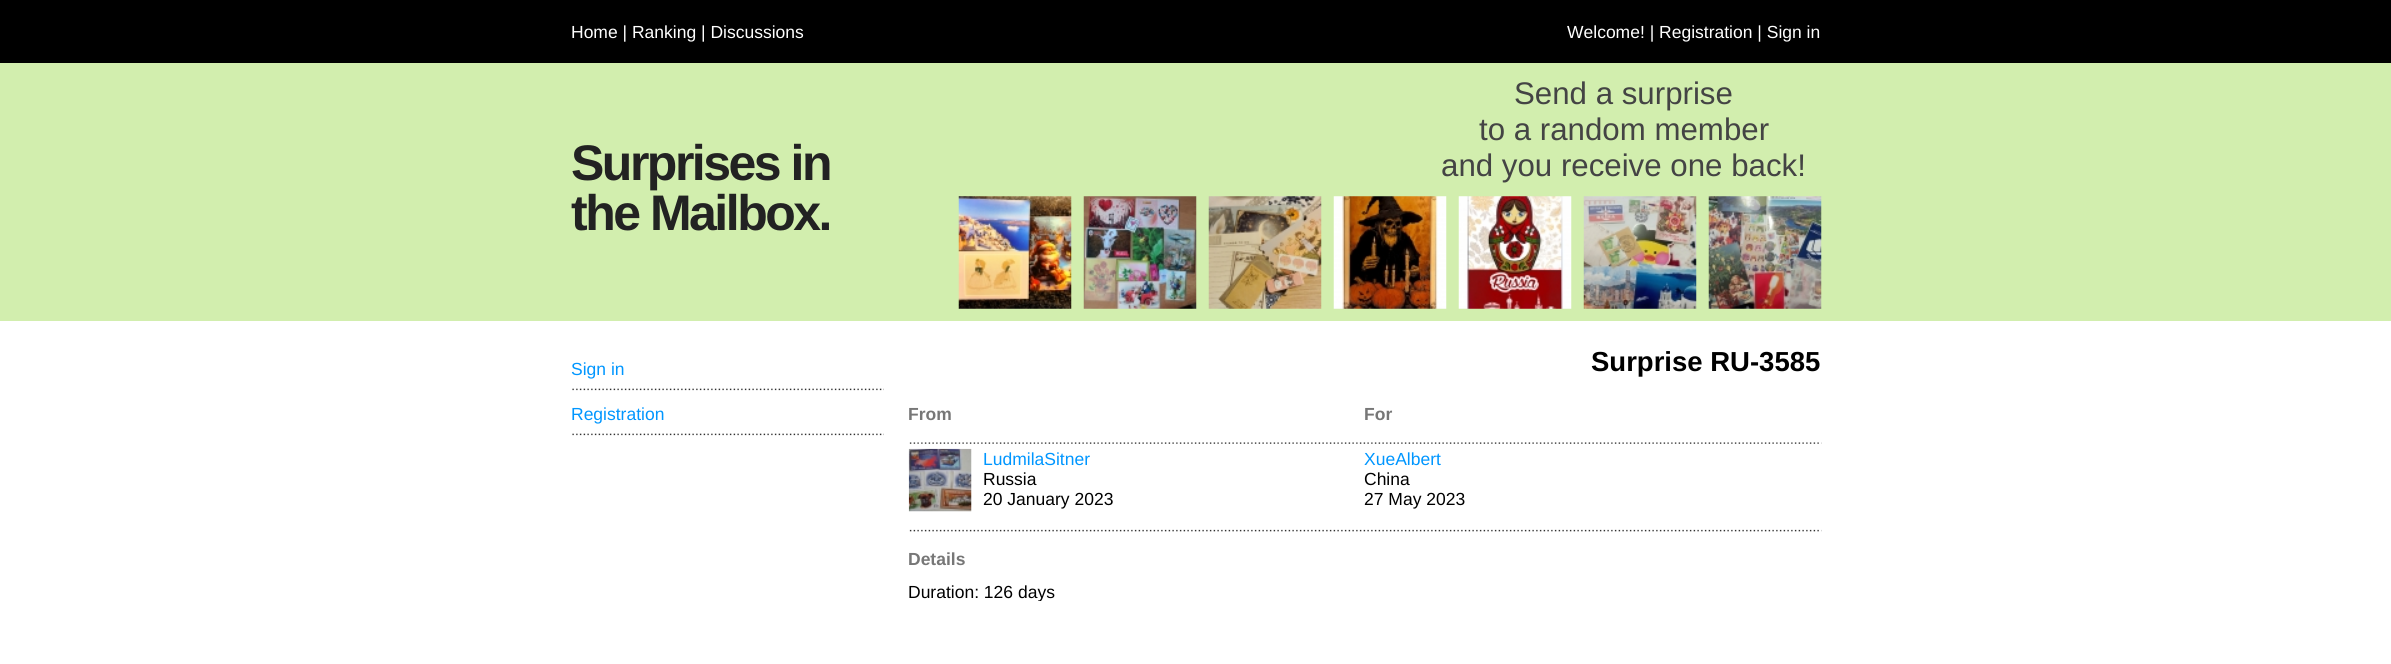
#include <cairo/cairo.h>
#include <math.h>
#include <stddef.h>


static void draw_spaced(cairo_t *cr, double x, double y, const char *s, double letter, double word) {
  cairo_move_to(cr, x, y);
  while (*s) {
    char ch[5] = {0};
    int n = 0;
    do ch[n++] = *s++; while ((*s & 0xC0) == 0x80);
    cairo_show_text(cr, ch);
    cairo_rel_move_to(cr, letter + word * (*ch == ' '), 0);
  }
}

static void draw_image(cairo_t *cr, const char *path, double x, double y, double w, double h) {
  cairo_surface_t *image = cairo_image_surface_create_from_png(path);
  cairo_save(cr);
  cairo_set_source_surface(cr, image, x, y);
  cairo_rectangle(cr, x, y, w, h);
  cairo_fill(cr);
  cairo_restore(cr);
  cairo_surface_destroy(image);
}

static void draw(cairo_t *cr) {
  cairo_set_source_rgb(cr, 1, 1, 1);
  cairo_paint(cr);
  cairo_set_source_rgb(cr, 0, 0, 0);
  cairo_rectangle(cr, 0, 0, 2391, 63);
  cairo_fill(cr);
  cairo_set_source_rgb(cr, 210 / 255.0, 238 / 255.0, 174 / 255.0);
  cairo_rectangle(cr, 0, 63, 2391, 258);
  cairo_fill(cr);
  draw_image(cr, "images/1.png", 958, 196, 114, 113);
  draw_image(cr, "images/2.png", 1083, 196, 114, 113);
  draw_image(cr, "images/3.png", 1208, 196, 114, 113);
  draw_image(cr, "images/4.png", 1333, 196, 114, 113);
  draw_image(cr, "images/5.png", 1458, 196, 114, 113);
  draw_image(cr, "images/6.png", 1583, 196, 114, 113);
  draw_image(cr, "images/7.png", 1708, 196, 114, 113);
  draw_image(cr, "images/8.png", 572, 388, 312, 3);
  draw_image(cr, "images/8.png", 572, 433, 312, 3);
  draw_image(cr, "images/9.png", 909, 442, 913, 2);
  draw_image(cr, "images/10.png", 908, 448, 64, 64);
  draw_image(cr, "images/11.png", 909, 529, 913, 3);
  cairo_select_font_face(cr, "Liberation Sans", CAIRO_FONT_SLANT_NORMAL, CAIRO_FONT_WEIGHT_NORMAL);
  cairo_set_font_size(cr, 17.5);
  cairo_set_source_rgb(cr, 1, 1, 1);
  cairo_move_to(cr, 571, 38);
  cairo_show_text(cr, "Home | Ranking | Discussions");
  cairo_move_to(cr, 1567, 38);
  cairo_show_text(cr, "Welcome! | Registration | Sign in");
  cairo_select_font_face(cr, "Liberation Sans", CAIRO_FONT_SLANT_NORMAL, CAIRO_FONT_WEIGHT_BOLD);
  cairo_set_font_size(cr, 50);
  cairo_set_source_rgb(cr, 34 / 255.0, 34 / 255.0, 34 / 255.0);
  draw_spaced(cr, 571, 180, "Surprises in", -2.5, 0);
  draw_spaced(cr, 571, 230, "the Mailbox.", -2.5, 0);
  cairo_select_font_face(cr, "Liberation Sans", CAIRO_FONT_SLANT_NORMAL, CAIRO_FONT_WEIGHT_NORMAL);
  cairo_set_font_size(cr, 31.25);
  cairo_set_source_rgb(cr, 68 / 255.0, 68 / 255.0, 68 / 255.0);
  cairo_move_to(cr, 1514, 104);
  cairo_show_text(cr, "Send a surprise");
  cairo_move_to(cr, 1479, 140);
  cairo_show_text(cr, "to a random member");
  cairo_move_to(cr, 1441, 176);
  cairo_show_text(cr, "and you receive one back!");
  cairo_set_font_size(cr, 17.5);
  cairo_set_source_rgb(cr, 0, 150 / 255.0, 1);
  cairo_move_to(cr, 571, 375);
  cairo_show_text(cr, "Sign in");
  cairo_move_to(cr, 571, 420);
  cairo_show_text(cr, "Registration");
  cairo_select_font_face(cr, "Liberation Sans", CAIRO_FONT_SLANT_NORMAL, CAIRO_FONT_WEIGHT_BOLD);
  cairo_set_font_size(cr, 27.5);
  cairo_set_source_rgb(cr, 0, 0, 0);
  cairo_move_to(cr, 1591, 371);
  cairo_show_text(cr, "Surprise RU-3585");
  cairo_set_font_size(cr, 17.5);
  cairo_set_source_rgb(cr, 119 / 255.0, 119 / 255.0, 119 / 255.0);
  cairo_move_to(cr, 908, 420);
  cairo_show_text(cr, "From");
  cairo_move_to(cr, 1364, 420);
  cairo_show_text(cr, "For");
  cairo_select_font_face(cr, "Liberation Sans", CAIRO_FONT_SLANT_NORMAL, CAIRO_FONT_WEIGHT_NORMAL);
  cairo_set_source_rgb(cr, 0, 150 / 255.0, 1);
  cairo_move_to(cr, 983, 465);
  cairo_show_text(cr, "LudmilaSitner");
  cairo_set_source_rgb(cr, 0, 0, 0);
  cairo_move_to(cr, 983, 485);
  cairo_show_text(cr, "Russia");
  cairo_move_to(cr, 983, 505);
  cairo_show_text(cr, "20 January 2023");
  cairo_set_source_rgb(cr, 0, 150 / 255.0, 1);
  cairo_move_to(cr, 1364, 465);
  cairo_show_text(cr, "XueAlbert");
  cairo_set_source_rgb(cr, 0, 0, 0);
  cairo_move_to(cr, 1364, 485);
  cairo_show_text(cr, "China");
  cairo_move_to(cr, 1364, 505);
  cairo_show_text(cr, "27 May 2023");
  cairo_select_font_face(cr, "Liberation Sans", CAIRO_FONT_SLANT_NORMAL, CAIRO_FONT_WEIGHT_BOLD);
  cairo_set_source_rgb(cr, 119 / 255.0, 119 / 255.0, 119 / 255.0);
  cairo_move_to(cr, 908, 565);
  cairo_show_text(cr, "Details");
  cairo_save(cr);
  cairo_rectangle(cr, 909, 549, 456, 52);
  cairo_clip(cr);
  cairo_select_font_face(cr, "Liberation Sans", CAIRO_FONT_SLANT_NORMAL, CAIRO_FONT_WEIGHT_NORMAL);
  cairo_set_source_rgb(cr, 0, 0, 0);
  cairo_move_to(cr, 908, 598);
  cairo_show_text(cr, "Duration: 126 days");
  cairo_restore(cr);
}

int main(void) {
  cairo_surface_t *surface = cairo_image_surface_create(CAIRO_FORMAT_RGB24, 2391, 664);
  cairo_t *cr = cairo_create(surface);
  cairo_font_options_t *options = cairo_font_options_create();
  cairo_font_options_set_hint_metrics(options, CAIRO_HINT_METRICS_OFF);
  cairo_font_options_set_hint_style(options, CAIRO_HINT_STYLE_NONE);
  cairo_set_font_options(cr, options);
  cairo_set_miter_limit(cr, 4);
  draw(cr);
  cairo_surface_write_to_png(surface, "out.png");
  cairo_font_options_destroy(options);
  cairo_destroy(cr);
  cairo_surface_destroy(surface);
  return 0;
}
